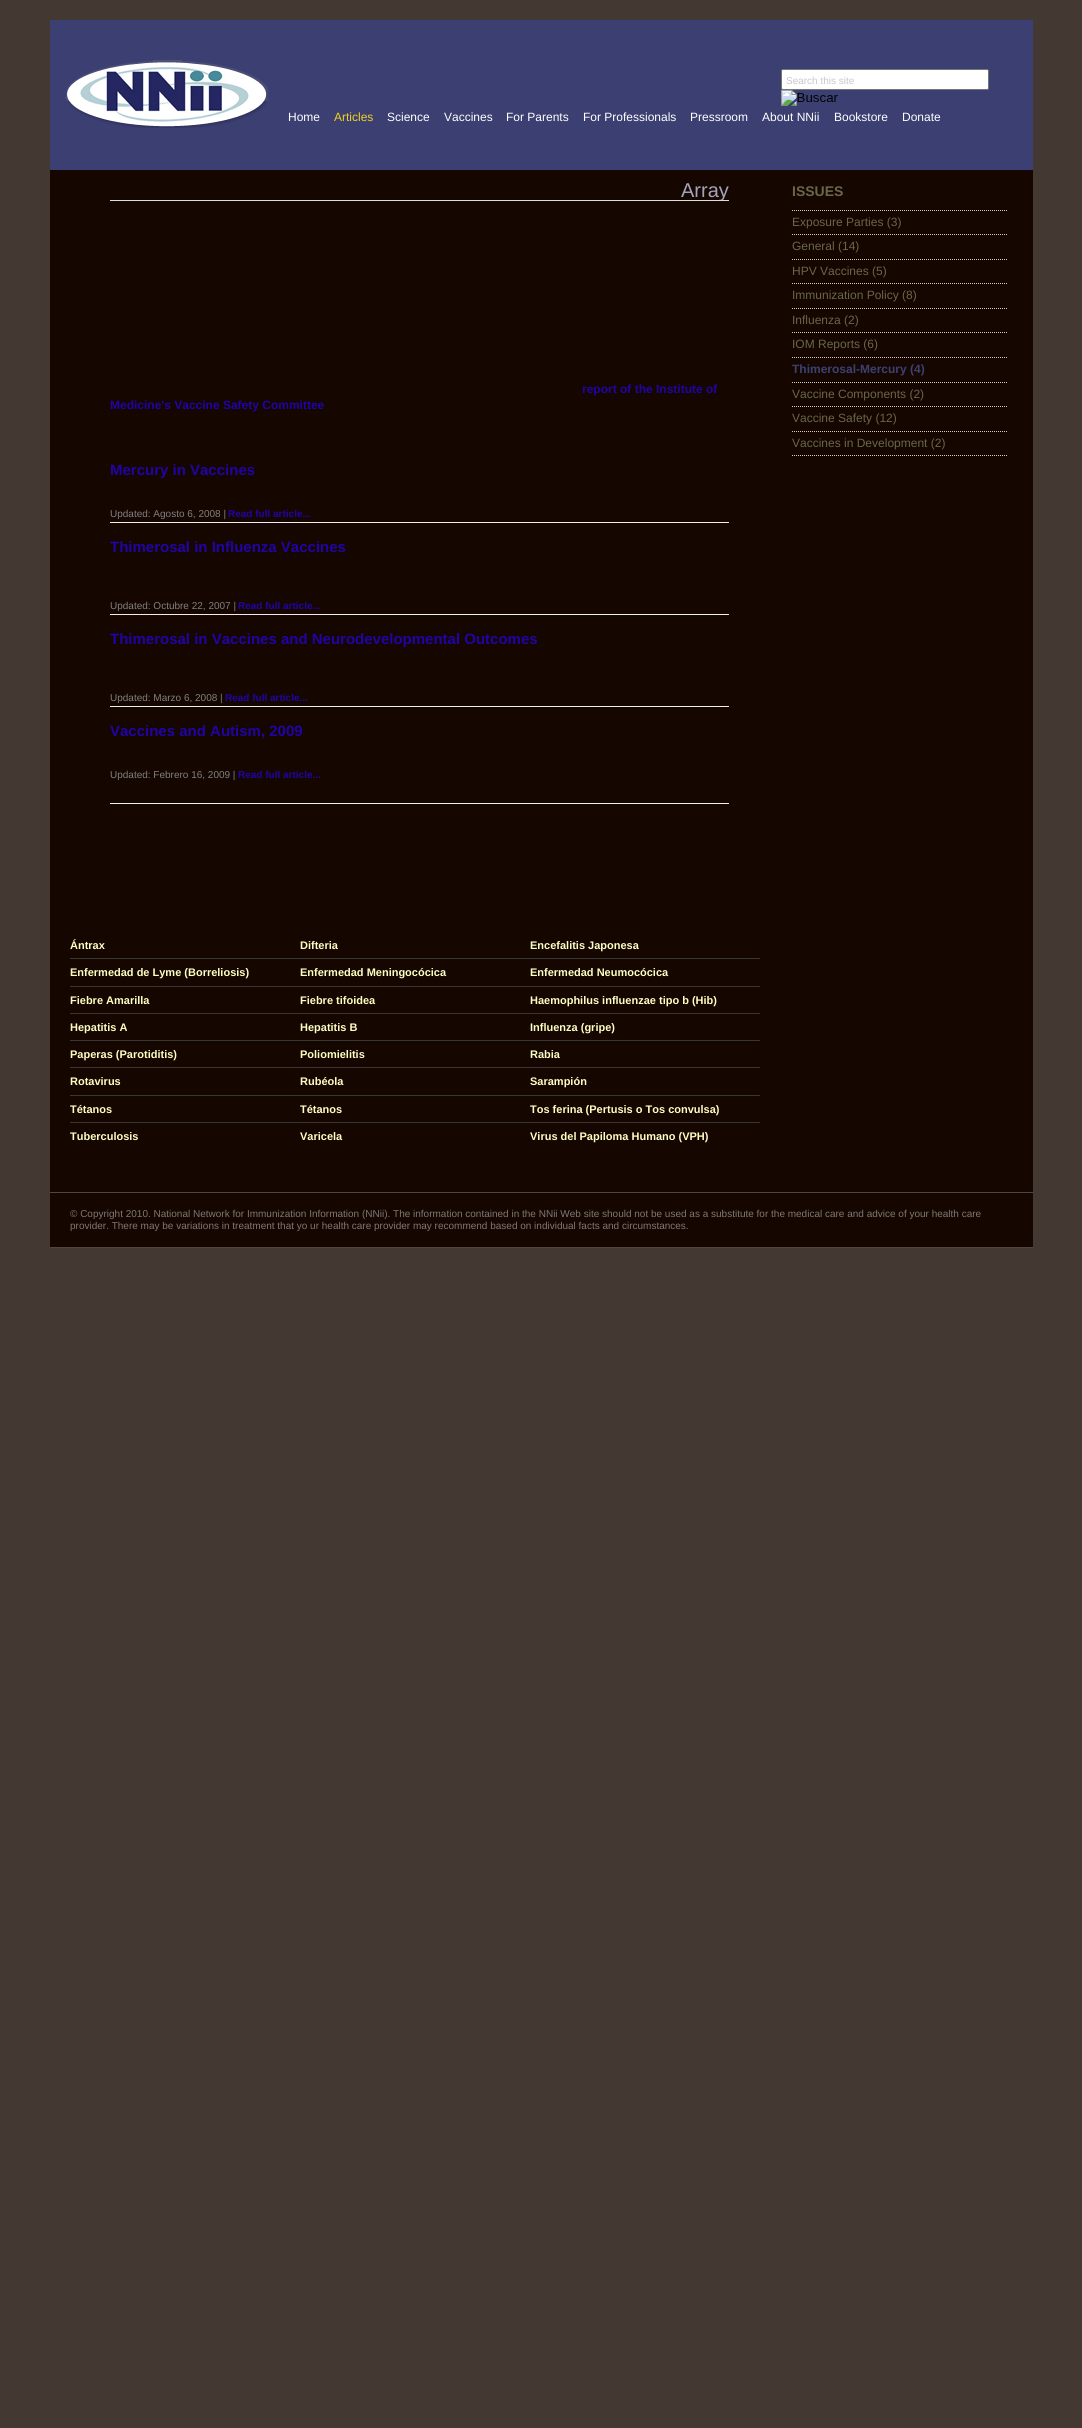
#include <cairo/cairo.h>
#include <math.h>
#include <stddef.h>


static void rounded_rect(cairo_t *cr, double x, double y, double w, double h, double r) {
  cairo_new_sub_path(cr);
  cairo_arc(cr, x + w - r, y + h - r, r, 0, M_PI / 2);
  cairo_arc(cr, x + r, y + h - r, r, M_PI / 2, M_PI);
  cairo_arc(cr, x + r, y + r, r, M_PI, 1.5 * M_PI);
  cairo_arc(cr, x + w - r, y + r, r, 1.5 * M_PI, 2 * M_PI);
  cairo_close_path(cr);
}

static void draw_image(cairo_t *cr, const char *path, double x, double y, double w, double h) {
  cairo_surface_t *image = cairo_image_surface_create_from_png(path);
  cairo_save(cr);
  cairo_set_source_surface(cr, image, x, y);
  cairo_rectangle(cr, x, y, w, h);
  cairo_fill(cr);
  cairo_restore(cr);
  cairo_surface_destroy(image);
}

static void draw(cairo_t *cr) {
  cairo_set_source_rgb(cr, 68 / 255.0, 56 / 255.0, 51 / 255.0);
  cairo_paint(cr);
  cairo_set_source_rgb(cr, 21 / 255.0, 6 / 255.0, 0);
  cairo_rectangle(cr, 50, 170, 983, 1077);
  cairo_fill(cr);
  cairo_set_source_rgb(cr, 60 / 255.0, 63 / 255.0, 114 / 255.0);
  cairo_rectangle(cr, 50, 20, 983, 150);
  cairo_fill(cr);
  draw_image(cr, "images/1.png", 65, 60, 204, 68);
  cairo_set_source_rgb(cr, 1, 1, 1);
  rounded_rect(cr, 781.5, 69.5, 207, 20, 1.5);
  cairo_fill_preserve(cr);
  cairo_set_source_rgb(cr, 118 / 255.0, 118 / 255.0, 118 / 255.0);
  cairo_set_line_width(cr, 1);
  cairo_stroke(cr);
  draw_image(cr, "images/2.png", 781, 90, 57, 16);
  cairo_set_source_rgb(cr, 81 / 255.0, 70 / 255.0, 65 / 255.0);
  cairo_rectangle(cr, 50, 1247, 983, 1);
  cairo_fill(cr);
  cairo_set_source_rgb(cr, 221 / 255.0, 221 / 255.0, 225 / 255.0);
  cairo_rectangle(cr, 110, 200, 619, 1);
  cairo_fill(cr);
  cairo_set_source_rgb(cr, 238 / 255.0, 238 / 255.0, 238 / 255.0);
  cairo_rectangle(cr, 110, 522, 619, 1);
  cairo_fill(cr);
  cairo_rectangle(cr, 110, 614, 619, 1);
  cairo_fill(cr);
  cairo_rectangle(cr, 110, 706, 619, 1);
  cairo_fill(cr);
  cairo_rectangle(cr, 110, 803, 619, 1);
  cairo_fill(cr);
  cairo_new_path(cr);
  cairo_move_to(cr, 792, 210.5);
  cairo_line_to(cr, 1008, 210.5);
  cairo_set_source_rgb(cr, 211 / 255.0, 208 / 255.0, 180 / 255.0);
  cairo_set_dash(cr, (double[]){1, 1}, 2, 0);
  cairo_stroke(cr);
  cairo_new_path(cr);
  cairo_move_to(cr, 792, 234.5);
  cairo_line_to(cr, 1008, 234.5);
  cairo_stroke(cr);
  cairo_new_path(cr);
  cairo_move_to(cr, 792, 259.5);
  cairo_line_to(cr, 1008, 259.5);
  cairo_stroke(cr);
  cairo_new_path(cr);
  cairo_move_to(cr, 792, 283.5);
  cairo_line_to(cr, 1008, 283.5);
  cairo_stroke(cr);
  cairo_new_path(cr);
  cairo_move_to(cr, 792, 308.5);
  cairo_line_to(cr, 1008, 308.5);
  cairo_stroke(cr);
  cairo_new_path(cr);
  cairo_move_to(cr, 792, 332.5);
  cairo_line_to(cr, 1008, 332.5);
  cairo_stroke(cr);
  cairo_new_path(cr);
  cairo_move_to(cr, 792, 357.5);
  cairo_line_to(cr, 1008, 357.5);
  cairo_stroke(cr);
  cairo_new_path(cr);
  cairo_move_to(cr, 792, 382.5);
  cairo_line_to(cr, 1008, 382.5);
  cairo_stroke(cr);
  cairo_new_path(cr);
  cairo_move_to(cr, 792, 406.5);
  cairo_line_to(cr, 1008, 406.5);
  cairo_stroke(cr);
  cairo_new_path(cr);
  cairo_move_to(cr, 792, 431.5);
  cairo_line_to(cr, 1008, 431.5);
  cairo_stroke(cr);
  cairo_new_path(cr);
  cairo_move_to(cr, 792, 455.5);
  cairo_line_to(cr, 1008, 455.5);
  cairo_stroke(cr);
  cairo_set_source_rgb(cr, 55 / 255.0, 55 / 255.0, 55 / 255.0);
  cairo_rectangle(cr, 70, 958, 690, 1);
  cairo_fill(cr);
  cairo_rectangle(cr, 70, 986, 690, 1);
  cairo_fill(cr);
  cairo_rectangle(cr, 70, 1013, 690, 1);
  cairo_fill(cr);
  cairo_rectangle(cr, 70, 1040, 690, 1);
  cairo_fill(cr);
  cairo_rectangle(cr, 70, 1067, 690, 1);
  cairo_fill(cr);
  cairo_rectangle(cr, 70, 1095, 690, 1);
  cairo_fill(cr);
  cairo_rectangle(cr, 70, 1122, 690, 1);
  cairo_fill(cr);
  cairo_set_source_rgb(cr, 81 / 255.0, 70 / 255.0, 65 / 255.0);
  cairo_rectangle(cr, 50, 1192, 983, 1);
  cairo_fill(cr);
  cairo_select_font_face(cr, "Liberation Sans", CAIRO_FONT_SLANT_NORMAL, CAIRO_FONT_WEIGHT_NORMAL);
  cairo_set_font_size(cr, 10);
  cairo_set_source_rgb(cr, 199 / 255.0, 199 / 255.0, 199 / 255.0);
  cairo_move_to(cr, 786, 84);
  cairo_show_text(cr, "Search this site");
  cairo_set_font_size(cr, 12);
  cairo_set_source_rgb(cr, 1, 1, 1);
  cairo_move_to(cr, 288, 121);
  cairo_show_text(cr, "Home");
  cairo_set_source_rgb(cr, 238 / 255.0, 211 / 255.0, 30 / 255.0);
  cairo_move_to(cr, 334, 121);
  cairo_show_text(cr, "Articles");
  cairo_set_source_rgb(cr, 1, 1, 1);
  cairo_move_to(cr, 387, 121);
  cairo_show_text(cr, "Science");
  cairo_move_to(cr, 444, 121);
  cairo_show_text(cr, "Vaccines");
  cairo_move_to(cr, 506, 121);
  cairo_show_text(cr, "For Parents");
  cairo_move_to(cr, 583, 121);
  cairo_show_text(cr, "For Professionals");
  cairo_move_to(cr, 690, 121);
  cairo_show_text(cr, "Pressroom");
  cairo_move_to(cr, 762, 121);
  cairo_show_text(cr, "About NNii");
  cairo_move_to(cr, 834, 121);
  cairo_show_text(cr, "Bookstore");
  cairo_move_to(cr, 902, 121);
  cairo_show_text(cr, "Donate");
  cairo_save(cr);
  cairo_rectangle(cr, 110, 180, 619, 20);
  cairo_clip(cr);
  cairo_set_font_size(cr, 20);
  cairo_set_source_rgb(cr, 163 / 255.0, 164 / 255.0, 188 / 255.0);
  cairo_move_to(cr, 681, 197);
  cairo_show_text(cr, "Array");
  cairo_restore(cr);
  cairo_select_font_face(cr, "Liberation Sans", CAIRO_FONT_SLANT_NORMAL, CAIRO_FONT_WEIGHT_BOLD);
  cairo_set_source_rgb(cr, 32 / 255.0, 3 / 255.0, 167 / 255.0);
  cairo_move_to(cr, 582, 393);
  cairo_show_text(cr, "report of the Institute of");
  cairo_move_to(cr, 110, 409);
  cairo_show_text(cr, "Medicine's Vaccine Safety Committee");
  cairo_set_font_size(cr, 15);
  cairo_move_to(cr, 110, 475);
  cairo_show_text(cr, "Mercury in Vaccines");
  cairo_select_font_face(cr, "Liberation Sans", CAIRO_FONT_SLANT_NORMAL, CAIRO_FONT_WEIGHT_NORMAL);
  cairo_set_font_size(cr, 10);
  cairo_set_source_rgb(cr, 128 / 255.0, 128 / 255.0, 128 / 255.0);
  cairo_move_to(cr, 110, 517);
  cairo_show_text(cr, "Updated: Agosto 6, 2008 |");
  cairo_select_font_face(cr, "Liberation Sans", CAIRO_FONT_SLANT_NORMAL, CAIRO_FONT_WEIGHT_BOLD);
  cairo_set_source_rgb(cr, 32 / 255.0, 3 / 255.0, 167 / 255.0);
  cairo_move_to(cr, 228, 517);
  cairo_show_text(cr, "Read full article...");
  cairo_set_font_size(cr, 15);
  cairo_move_to(cr, 110, 552);
  cairo_show_text(cr, "Thimerosal in Influenza Vaccines");
  cairo_select_font_face(cr, "Liberation Sans", CAIRO_FONT_SLANT_NORMAL, CAIRO_FONT_WEIGHT_NORMAL);
  cairo_set_font_size(cr, 10);
  cairo_set_source_rgb(cr, 128 / 255.0, 128 / 255.0, 128 / 255.0);
  cairo_move_to(cr, 110, 609);
  cairo_show_text(cr, "Updated: Octubre 22, 2007 |");
  cairo_select_font_face(cr, "Liberation Sans", CAIRO_FONT_SLANT_NORMAL, CAIRO_FONT_WEIGHT_BOLD);
  cairo_set_source_rgb(cr, 32 / 255.0, 3 / 255.0, 167 / 255.0);
  cairo_move_to(cr, 238, 609);
  cairo_show_text(cr, "Read full article...");
  cairo_set_font_size(cr, 15);
  cairo_move_to(cr, 110, 644);
  cairo_show_text(cr, "Thimerosal in Vaccines and Neurodevelopmental Outcomes");
  cairo_select_font_face(cr, "Liberation Sans", CAIRO_FONT_SLANT_NORMAL, CAIRO_FONT_WEIGHT_NORMAL);
  cairo_set_font_size(cr, 10);
  cairo_set_source_rgb(cr, 128 / 255.0, 128 / 255.0, 128 / 255.0);
  cairo_move_to(cr, 110, 701);
  cairo_show_text(cr, "Updated: Marzo 6, 2008 |");
  cairo_select_font_face(cr, "Liberation Sans", CAIRO_FONT_SLANT_NORMAL, CAIRO_FONT_WEIGHT_BOLD);
  cairo_set_source_rgb(cr, 32 / 255.0, 3 / 255.0, 167 / 255.0);
  cairo_move_to(cr, 225, 701);
  cairo_show_text(cr, "Read full article...");
  cairo_set_font_size(cr, 15);
  cairo_move_to(cr, 110, 736);
  cairo_show_text(cr, "Vaccines and Autism, 2009");
  cairo_select_font_face(cr, "Liberation Sans", CAIRO_FONT_SLANT_NORMAL, CAIRO_FONT_WEIGHT_NORMAL);
  cairo_set_font_size(cr, 10);
  cairo_set_source_rgb(cr, 128 / 255.0, 128 / 255.0, 128 / 255.0);
  cairo_move_to(cr, 110, 778);
  cairo_show_text(cr, "Updated: Febrero 16, 2009 |");
  cairo_select_font_face(cr, "Liberation Sans", CAIRO_FONT_SLANT_NORMAL, CAIRO_FONT_WEIGHT_BOLD);
  cairo_set_source_rgb(cr, 32 / 255.0, 3 / 255.0, 167 / 255.0);
  cairo_move_to(cr, 238, 778);
  cairo_show_text(cr, "Read full article...");
  cairo_set_font_size(cr, 14);
  cairo_set_source_rgb(cr, 105 / 255.0, 102 / 255.0, 73 / 255.0);
  cairo_move_to(cr, 792, 196);
  cairo_show_text(cr, "ISSUES");
  cairo_select_font_face(cr, "Liberation Sans", CAIRO_FONT_SLANT_NORMAL, CAIRO_FONT_WEIGHT_NORMAL);
  cairo_set_font_size(cr, 12);
  cairo_move_to(cr, 792, 226);
  cairo_show_text(cr, "Exposure Parties (3)");
  cairo_move_to(cr, 792, 250);
  cairo_show_text(cr, "General (14)");
  cairo_move_to(cr, 792, 275);
  cairo_show_text(cr, "HPV Vaccines (5)");
  cairo_move_to(cr, 792, 299);
  cairo_show_text(cr, "Immunization Policy (8)");
  cairo_move_to(cr, 792, 324);
  cairo_show_text(cr, "Influenza (2)");
  cairo_move_to(cr, 792, 348);
  cairo_show_text(cr, "IOM Reports (6)");
  cairo_select_font_face(cr, "Liberation Sans", CAIRO_FONT_SLANT_NORMAL, CAIRO_FONT_WEIGHT_BOLD);
  cairo_set_source_rgb(cr, 59 / 255.0, 65 / 255.0, 115 / 255.0);
  cairo_move_to(cr, 792, 373);
  cairo_show_text(cr, "Thimerosal-Mercury (4)");
  cairo_select_font_face(cr, "Liberation Sans", CAIRO_FONT_SLANT_NORMAL, CAIRO_FONT_WEIGHT_NORMAL);
  cairo_set_source_rgb(cr, 105 / 255.0, 102 / 255.0, 73 / 255.0);
  cairo_move_to(cr, 792, 398);
  cairo_show_text(cr, "Vaccine Components (2)");
  cairo_move_to(cr, 792, 422);
  cairo_show_text(cr, "Vaccine Safety (12)");
  cairo_move_to(cr, 792, 447);
  cairo_show_text(cr, "Vaccines in Development (2)");
  cairo_select_font_face(cr, "Liberation Sans", CAIRO_FONT_SLANT_NORMAL, CAIRO_FONT_WEIGHT_BOLD);
  cairo_set_font_size(cr, 11);
  cairo_set_source_rgb(cr, 1, 254 / 255.0, 194 / 255.0);
  cairo_move_to(cr, 70, 949);
  cairo_show_text(cr, "Ántrax");
  cairo_move_to(cr, 300, 949);
  cairo_show_text(cr, "Difteria");
  cairo_move_to(cr, 530, 949);
  cairo_show_text(cr, "Encefalitis Japonesa");
  cairo_move_to(cr, 70, 976);
  cairo_show_text(cr, "Enfermedad de Lyme (Borreliosis)");
  cairo_move_to(cr, 300, 976);
  cairo_show_text(cr, "Enfermedad Meningocócica");
  cairo_move_to(cr, 530, 976);
  cairo_show_text(cr, "Enfermedad Neumocócica");
  cairo_move_to(cr, 70, 1004);
  cairo_show_text(cr, "Fiebre Amarilla");
  cairo_move_to(cr, 300, 1004);
  cairo_show_text(cr, "Fiebre tifoidea");
  cairo_move_to(cr, 530, 1004);
  cairo_show_text(cr, "Haemophilus influenzae tipo b (Hib)");
  cairo_move_to(cr, 70, 1031);
  cairo_show_text(cr, "Hepatitis A");
  cairo_move_to(cr, 300, 1031);
  cairo_show_text(cr, "Hepatitis B");
  cairo_move_to(cr, 530, 1031);
  cairo_show_text(cr, "Influenza (gripe)");
  cairo_move_to(cr, 70, 1058);
  cairo_show_text(cr, "Paperas (Parotiditis)");
  cairo_move_to(cr, 300, 1058);
  cairo_show_text(cr, "Poliomielitis");
  cairo_move_to(cr, 530, 1058);
  cairo_show_text(cr, "Rabia");
  cairo_move_to(cr, 70, 1085);
  cairo_show_text(cr, "Rotavirus");
  cairo_move_to(cr, 300, 1085);
  cairo_show_text(cr, "Rubéola");
  cairo_move_to(cr, 530, 1085);
  cairo_show_text(cr, "Sarampión");
  cairo_move_to(cr, 70, 1113);
  cairo_show_text(cr, "Tétanos");
  cairo_move_to(cr, 300, 1113);
  cairo_show_text(cr, "Tétanos");
  cairo_move_to(cr, 530, 1113);
  cairo_show_text(cr, "Tos ferina (Pertusis o Tos convulsa)");
  cairo_move_to(cr, 70, 1140);
  cairo_show_text(cr, "Tuberculosis");
  cairo_move_to(cr, 300, 1140);
  cairo_show_text(cr, "Varicela");
  cairo_move_to(cr, 530, 1140);
  cairo_show_text(cr, "Virus del Papiloma Humano (VPH)");
  cairo_select_font_face(cr, "Liberation Sans", CAIRO_FONT_SLANT_NORMAL, CAIRO_FONT_WEIGHT_NORMAL);
  cairo_set_font_size(cr, 10);
  cairo_set_source_rgb(cr, 127 / 255.0, 119 / 255.0, 116 / 255.0);
  cairo_move_to(cr, 70, 1217);
  cairo_show_text(cr, "© Copyright 2010. National Network for Immunization Information (NNii). The information contained in the NNii Web site should not be used as a substitute for the medical care and advice of your health care");
  cairo_move_to(cr, 70, 1229);
  cairo_show_text(cr, "provider. There may be variations in treatment that yo ur health care provider may recommend based on individual facts and circumstances.");
}

int main(void) {
  cairo_surface_t *surface = cairo_image_surface_create(CAIRO_FORMAT_RGB24, 1082, 2428);
  cairo_t *cr = cairo_create(surface);
  cairo_font_options_t *options = cairo_font_options_create();
  cairo_font_options_set_hint_metrics(options, CAIRO_HINT_METRICS_OFF);
  cairo_font_options_set_hint_style(options, CAIRO_HINT_STYLE_NONE);
  cairo_set_font_options(cr, options);
  cairo_set_miter_limit(cr, 4);
  draw(cr);
  cairo_surface_write_to_png(surface, "out.png");
  cairo_font_options_destroy(options);
  cairo_destroy(cr);
  cairo_surface_destroy(surface);
  return 0;
}
